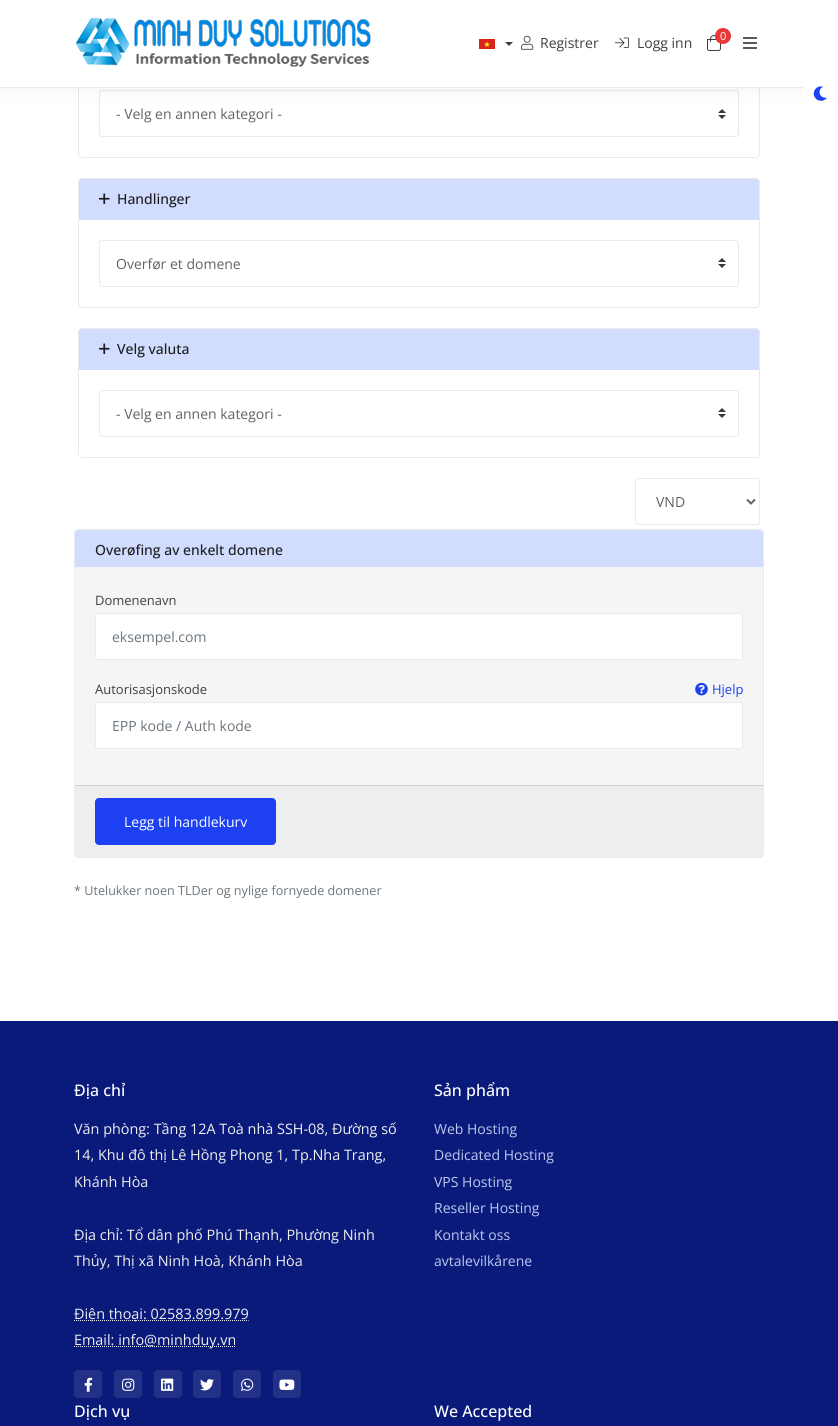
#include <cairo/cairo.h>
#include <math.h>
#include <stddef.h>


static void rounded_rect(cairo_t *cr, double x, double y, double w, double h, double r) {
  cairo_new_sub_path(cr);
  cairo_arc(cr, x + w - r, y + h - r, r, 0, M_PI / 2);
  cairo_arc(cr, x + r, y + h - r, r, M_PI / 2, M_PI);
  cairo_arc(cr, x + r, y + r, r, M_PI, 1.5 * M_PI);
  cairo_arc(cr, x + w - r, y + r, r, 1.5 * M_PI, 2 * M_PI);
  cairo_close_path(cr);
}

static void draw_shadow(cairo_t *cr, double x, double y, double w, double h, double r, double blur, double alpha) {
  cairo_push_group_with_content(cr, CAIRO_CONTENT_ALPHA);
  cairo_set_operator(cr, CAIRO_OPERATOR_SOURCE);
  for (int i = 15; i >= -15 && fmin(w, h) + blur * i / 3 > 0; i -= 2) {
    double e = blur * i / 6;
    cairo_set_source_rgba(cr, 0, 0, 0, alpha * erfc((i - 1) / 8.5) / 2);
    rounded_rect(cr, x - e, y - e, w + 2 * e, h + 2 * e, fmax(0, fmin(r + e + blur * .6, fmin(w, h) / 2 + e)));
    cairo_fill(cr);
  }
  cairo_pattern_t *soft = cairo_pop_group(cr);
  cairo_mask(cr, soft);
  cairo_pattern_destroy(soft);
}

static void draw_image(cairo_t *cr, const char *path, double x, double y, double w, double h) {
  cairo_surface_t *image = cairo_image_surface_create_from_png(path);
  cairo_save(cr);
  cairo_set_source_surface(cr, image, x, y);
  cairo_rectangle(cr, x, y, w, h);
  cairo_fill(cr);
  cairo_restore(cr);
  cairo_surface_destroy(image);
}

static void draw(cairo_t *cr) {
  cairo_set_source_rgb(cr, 1, 1, 1);
  cairo_paint(cr);
  rounded_rect(cr, 78.5, 28.5, 681, 129, 3.5);
  cairo_set_source_rgb(cr, 233 / 255.0, 234 / 255.0, 236 / 255.0);
  cairo_set_line_width(cr, 1);
  cairo_stroke(cr);
  draw_image(cr, "images/8.png", 718, 109, 8, 10);
  rounded_rect(cr, 99.5, 90.5, 639, 46, 2.5);
  cairo_stroke(cr);
  cairo_set_source_rgb(cr, 0, 0, 0);
  draw_shadow(cr, 2, 0, 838, 88, 0, 10, 0.06);
  cairo_set_source_rgb(cr, 1, 1, 1);
  cairo_rectangle(cr, 0, 0, 838, 87);
  cairo_fill(cr);
  cairo_set_source_rgb(cr, 233 / 255.0, 234 / 255.0, 236 / 255.0);
  cairo_rectangle(cr, 0, 87, 803, 1);
  cairo_fill(cr);
  draw_image(cr, "images/1.png", 75, 17, 296, 50);
  draw_image(cr, "images/2.png", 479, 39, 16, 10);
  cairo_set_source_rgb(cr, 64 / 255.0, 64 / 255.0, 64 / 255.0);
  cairo_new_path(cr);
  cairo_move_to(cr, 505, 42);
  cairo_line_to(cr, 513, 42);
  cairo_line_to(cr, 509, 46);
  cairo_close_path(cr);
  cairo_fill(cr);
  draw_image(cr, "images/3.png", 521, 35, 13, 15);
  draw_image(cr, "images/4.png", 615, 37, 14, 11);
  draw_image(cr, "images/5.png", 707, 35, 14, 16);
  cairo_set_source_rgb(cr, 232 / 255.0, 55 / 255.0, 55 / 255.0);
  cairo_arc(cr, 723, 36, 8, 0, 2 * M_PI);
  cairo_fill(cr);
  draw_image(cr, "images/6.png", 743, 37, 14, 12);
  cairo_set_source_rgb(cr, 1, 1, 1);
  cairo_rectangle(cr, 803, 87, 35, 11);
  cairo_fill(cr);
  draw_image(cr, "images/7.png", 813, 86, 14, 15);
  rounded_rect(cr, 78.5, 178.5, 681, 129, 3.5);
  cairo_set_source_rgb(cr, 233 / 255.0, 234 / 255.0, 236 / 255.0);
  cairo_stroke(cr);
  cairo_set_source_rgb(cr, 209 / 255.0, 220 / 255.0, 254 / 255.0);
  cairo_new_path(cr);
  cairo_move_to(cr, 82, 179);
  cairo_line_to(cr, 756, 179);
  cairo_curve_to(cr, 757.5, 179, 759, 180.5, 759, 182);
  cairo_line_to(cr, 759, 220);
  cairo_line_to(cr, 79, 220);
  cairo_line_to(cr, 79, 182);
  cairo_curve_to(cr, 79, 180.5, 80.5, 179, 82, 179);
  cairo_close_path(cr);
  cairo_fill(cr);
  draw_image(cr, "images/9.png", 99, 193, 11, 11);
  draw_image(cr, "images/8.png", 718, 258, 8, 10);
  rounded_rect(cr, 99.5, 240.5, 639, 46, 2.5);
  cairo_set_source_rgb(cr, 233 / 255.0, 234 / 255.0, 236 / 255.0);
  cairo_stroke(cr);
  rounded_rect(cr, 78.5, 328.5, 681, 129, 3.5);
  cairo_stroke(cr);
  cairo_set_source_rgb(cr, 209 / 255.0, 220 / 255.0, 254 / 255.0);
  cairo_new_path(cr);
  cairo_move_to(cr, 82, 329);
  cairo_line_to(cr, 756, 329);
  cairo_curve_to(cr, 757.5, 329, 759, 330.5, 759, 332);
  cairo_line_to(cr, 759, 370);
  cairo_line_to(cr, 79, 370);
  cairo_line_to(cr, 79, 332);
  cairo_curve_to(cr, 79, 330.5, 80.5, 329, 82, 329);
  cairo_close_path(cr);
  cairo_fill(cr);
  draw_image(cr, "images/9.png", 99, 343, 11, 11);
  draw_image(cr, "images/8.png", 718, 408, 8, 10);
  rounded_rect(cr, 99.5, 390.5, 639, 46, 2.5);
  cairo_set_source_rgb(cr, 233 / 255.0, 234 / 255.0, 236 / 255.0);
  cairo_stroke(cr);
  rounded_rect(cr, 635.5, 478.5, 124, 46, 2.5);
  cairo_stroke(cr);
  cairo_new_path(cr);
  cairo_move_to(cr, 747, 499.5);
  cairo_line_to(cr, 751, 503.5);
  cairo_line_to(cr, 755, 499.5);
  cairo_set_source_rgb(cr, 98 / 255.0, 98 / 255.0, 98 / 255.0);
  cairo_set_line_width(cr, 2);
  cairo_stroke(cr);
  cairo_set_source_rgb(cr, 245 / 255.0, 245 / 255.0, 245 / 255.0);
  rounded_rect(cr, 74.5, 529.5, 689, 328, 3.5);
  cairo_fill_preserve(cr);
  cairo_set_source_rgb(cr, 233 / 255.0, 234 / 255.0, 236 / 255.0);
  cairo_set_line_width(cr, 1);
  cairo_stroke(cr);
  cairo_set_source_rgb(cr, 209 / 255.0, 220 / 255.0, 254 / 255.0);
  cairo_new_path(cr);
  cairo_move_to(cr, 78, 530);
  cairo_line_to(cr, 760, 530);
  cairo_curve_to(cr, 761.5, 530, 763, 531.5, 763, 533);
  cairo_line_to(cr, 763, 567);
  cairo_line_to(cr, 75, 567);
  cairo_line_to(cr, 75, 533);
  cairo_curve_to(cr, 75, 531.5, 76.5, 530, 78, 530);
  cairo_close_path(cr);
  cairo_fill(cr);
  cairo_set_source_rgb(cr, 1, 1, 1);
  rounded_rect(cr, 95.5, 613.5, 647, 46, 2.5);
  cairo_fill_preserve(cr);
  cairo_set_source_rgb(cr, 233 / 255.0, 234 / 255.0, 236 / 255.0);
  cairo_stroke(cr);
  draw_image(cr, "images/10.png", 695, 682, 13, 14);
  cairo_set_source_rgb(cr, 1, 1, 1);
  rounded_rect(cr, 95.5, 702.5, 647, 46, 2.5);
  cairo_fill_preserve(cr);
  cairo_set_source_rgb(cr, 233 / 255.0, 234 / 255.0, 236 / 255.0);
  cairo_stroke(cr);
  cairo_set_source_rgba(cr, 0, 0, 0, 0.03);
  cairo_rectangle(cr, 75, 786, 688, 71);
  cairo_fill(cr);
  cairo_set_source_rgb(cr, 208 / 255.0, 208 / 255.0, 208 / 255.0);
  cairo_rectangle(cr, 75, 785, 688, 1);
  cairo_fill(cr);
  cairo_set_source_rgb(cr, 28 / 255.0, 64 / 255.0, 242 / 255.0);
  rounded_rect(cr, 95.5, 798.5, 180, 46, 3.5);
  cairo_fill_preserve(cr);
  cairo_stroke(cr);
  cairo_set_source_rgb(cr, 9 / 255.0, 26 / 255.0, 122 / 255.0);
  cairo_rectangle(cr, 0, 1021, 838, 405);
  cairo_fill(cr);
  cairo_new_path(cr);
  cairo_move_to(cr, 74, 1320.5);
  cairo_line_to(cr, 248.5, 1320.5);
  cairo_set_source_rgb(cr, 238 / 255.0, 238 / 255.0, 238 / 255.0);
  cairo_set_dash(cr, (double[]){1, 1}, 2, 0);
  cairo_stroke(cr);
  cairo_new_path(cr);
  cairo_move_to(cr, 74, 1346.5);
  cairo_line_to(cr, 236, 1346.5);
  cairo_stroke(cr);
  cairo_set_source_rgb(cr, 34 / 255.0, 49 / 255.0, 135 / 255.0);
  rounded_rect(cr, 74, 1370, 28, 28, 4);
  cairo_fill(cr);
  draw_image(cr, "images/11.png", 84, 1377, 9, 15);
  rounded_rect(cr, 114, 1370, 28, 28, 4);
  cairo_fill(cr);
  draw_image(cr, "images/12.png", 122, 1378, 13, 13);
  rounded_rect(cr, 154, 1370, 28, 28, 4);
  cairo_fill(cr);
  draw_image(cr, "images/13.png", 161, 1378, 13, 13);
  rounded_rect(cr, 193, 1370, 28, 28, 4);
  cairo_fill(cr);
  draw_image(cr, "images/14.png", 200, 1379, 14, 12);
  rounded_rect(cr, 233, 1370, 28, 28, 4);
  cairo_fill(cr);
  draw_image(cr, "images/15.png", 241, 1378, 13, 13);
  rounded_rect(cr, 273, 1370, 28, 28, 4);
  cairo_fill(cr);
  draw_image(cr, "images/16.png", 279, 1379, 16, 11);
  cairo_select_font_face(cr, "Open Sans", CAIRO_FONT_SLANT_NORMAL, CAIRO_FONT_WEIGHT_NORMAL);
  cairo_set_font_size(cr, 14);
  cairo_set_source_rgb(cr, 64 / 255.0, 64 / 255.0, 64 / 255.0);
  cairo_move_to(cr, 540, 48);
  cairo_show_text(cr, "Registrer");
  cairo_move_to(cr, 637, 48);
  cairo_show_text(cr, "Logg inn");
  cairo_set_font_size(cr, 11);
  cairo_set_source_rgb(cr, 1, 1, 1);
  cairo_move_to(cr, 720, 40);
  cairo_show_text(cr, "0");
  cairo_set_font_size(cr, 14);
  cairo_set_source_rgb(cr, 98 / 255.0, 98 / 255.0, 98 / 255.0);
  cairo_move_to(cr, 116, 119);
  cairo_show_text(cr, "- Velg en annen kategori -");
  cairo_select_font_face(cr, "Open Sans Medium", CAIRO_FONT_SLANT_NORMAL, CAIRO_FONT_WEIGHT_NORMAL);
  cairo_set_source_rgb(cr, 29 / 255.0, 29 / 255.0, 31 / 255.0);
  cairo_move_to(cr, 117, 204);
  cairo_show_text(cr, "Handlinger");
  cairo_select_font_face(cr, "Open Sans", CAIRO_FONT_SLANT_NORMAL, CAIRO_FONT_WEIGHT_NORMAL);
  cairo_set_source_rgb(cr, 98 / 255.0, 98 / 255.0, 98 / 255.0);
  cairo_move_to(cr, 116, 269);
  cairo_show_text(cr, "Overfør et domene");
  cairo_select_font_face(cr, "Open Sans Medium", CAIRO_FONT_SLANT_NORMAL, CAIRO_FONT_WEIGHT_NORMAL);
  cairo_set_source_rgb(cr, 29 / 255.0, 29 / 255.0, 31 / 255.0);
  cairo_move_to(cr, 117, 354);
  cairo_show_text(cr, "Velg valuta");
  cairo_select_font_face(cr, "Open Sans", CAIRO_FONT_SLANT_NORMAL, CAIRO_FONT_WEIGHT_NORMAL);
  cairo_set_source_rgb(cr, 98 / 255.0, 98 / 255.0, 98 / 255.0);
  cairo_move_to(cr, 116, 419);
  cairo_show_text(cr, "- Velg en annen kategori -");
  cairo_move_to(cr, 656, 507);
  cairo_show_text(cr, "VND");
  cairo_select_font_face(cr, "Open Sans Medium", CAIRO_FONT_SLANT_NORMAL, CAIRO_FONT_WEIGHT_NORMAL);
  cairo_set_source_rgb(cr, 29 / 255.0, 29 / 255.0, 31 / 255.0);
  cairo_move_to(cr, 95, 555);
  cairo_show_text(cr, "Overøfing av enkelt domene");
  cairo_select_font_face(cr, "Open Sans", CAIRO_FONT_SLANT_NORMAL, CAIRO_FONT_WEIGHT_NORMAL);
  cairo_set_font_size(cr, 13);
  cairo_set_source_rgb(cr, 64 / 255.0, 64 / 255.0, 64 / 255.0);
  cairo_move_to(cr, 95, 605);
  cairo_show_text(cr, "Domenenavn");
  cairo_set_font_size(cr, 14);
  cairo_set_source_rgb(cr, 108 / 255.0, 117 / 255.0, 125 / 255.0);
  cairo_move_to(cr, 112, 642);
  cairo_show_text(cr, "eksempel.com");
  cairo_set_font_size(cr, 13);
  cairo_set_source_rgb(cr, 64 / 255.0, 64 / 255.0, 64 / 255.0);
  cairo_move_to(cr, 95, 694);
  cairo_show_text(cr, "Autorisasjonskode");
  cairo_set_source_rgb(cr, 28 / 255.0, 64 / 255.0, 242 / 255.0);
  cairo_move_to(cr, 712, 694);
  cairo_show_text(cr, "Hjelp");
  cairo_set_font_size(cr, 14);
  cairo_set_source_rgb(cr, 108 / 255.0, 117 / 255.0, 125 / 255.0);
  cairo_move_to(cr, 112, 731);
  cairo_show_text(cr, "EPP kode / Auth kode");
  cairo_set_source_rgb(cr, 1, 1, 1);
  cairo_move_to(cr, 124, 827);
  cairo_show_text(cr, "Legg til handlekurv");
  cairo_set_font_size(cr, 12.6);
  cairo_set_source_rgb(cr, 108 / 255.0, 117 / 255.0, 125 / 255.0);
  cairo_move_to(cr, 74, 895);
  cairo_show_text(cr, "* Utelukker noen TLDer og nylige fornyede domener");
  cairo_select_font_face(cr, "Open Sans Medium", CAIRO_FONT_SLANT_NORMAL, CAIRO_FONT_WEIGHT_NORMAL);
  cairo_set_font_size(cr, 16);
  cairo_set_source_rgb(cr, 1, 1, 1);
  cairo_move_to(cr, 74, 1096);
  cairo_show_text(cr, "Địa chỉ");
  cairo_select_font_face(cr, "Open Sans", CAIRO_FONT_SLANT_NORMAL, CAIRO_FONT_WEIGHT_NORMAL);
  cairo_set_font_size(cr, 14.4);
  cairo_set_source_rgb(cr, 238 / 255.0, 238 / 255.0, 238 / 255.0);
  cairo_move_to(cr, 74, 1134);
  cairo_show_text(cr, "Văn phòng: Tầng 12A Toà nhà SSH-08, Đường số");
  cairo_move_to(cr, 74, 1160);
  cairo_show_text(cr, "14, Khu đô thị Lê Hồng Phong 1, Tp.Nha Trang,");
  cairo_move_to(cr, 74, 1187);
  cairo_show_text(cr, "Khánh Hòa");
  cairo_move_to(cr, 74, 1240);
  cairo_show_text(cr, "Địa chỉ: Tổ dân phố Phú Thạnh, Phường Ninh");
  cairo_move_to(cr, 74, 1266);
  cairo_show_text(cr, "Thủy, Thị xã Ninh Hoà, Khánh Hòa");
  cairo_move_to(cr, 74, 1319);
  cairo_show_text(cr, "Điện thoại: 02583.899.979");
  cairo_move_to(cr, 74, 1345);
  cairo_show_text(cr, "Email: info@minhduy.vn");
  cairo_select_font_face(cr, "Open Sans Medium", CAIRO_FONT_SLANT_NORMAL, CAIRO_FONT_WEIGHT_NORMAL);
  cairo_set_font_size(cr, 16);
  cairo_set_source_rgb(cr, 1, 1, 1);
  cairo_move_to(cr, 434, 1096);
  cairo_show_text(cr, "Sản phẩm");
  cairo_select_font_face(cr, "Open Sans", CAIRO_FONT_SLANT_NORMAL, CAIRO_FONT_WEIGHT_NORMAL);
  cairo_set_font_size(cr, 14);
  cairo_set_source_rgb(cr, 189 / 255.0, 201 / 255.0, 241 / 255.0);
  cairo_move_to(cr, 434, 1134);
  cairo_show_text(cr, "Web Hosting");
  cairo_move_to(cr, 434, 1160);
  cairo_show_text(cr, "Dedicated Hosting");
  cairo_move_to(cr, 434, 1187);
  cairo_show_text(cr, "VPS Hosting");
  cairo_move_to(cr, 434, 1213);
  cairo_show_text(cr, "Reseller Hosting");
  cairo_move_to(cr, 434, 1240);
  cairo_show_text(cr, "Kontakt oss");
  cairo_move_to(cr, 434, 1266);
  cairo_show_text(cr, "avtalevilkårene");
  cairo_select_font_face(cr, "Open Sans Medium", CAIRO_FONT_SLANT_NORMAL, CAIRO_FONT_WEIGHT_NORMAL);
  cairo_set_font_size(cr, 16);
  cairo_set_source_rgb(cr, 1, 1, 1);
  cairo_move_to(cr, 74, 1417);
  cairo_show_text(cr, "Dịch vụ");
  cairo_move_to(cr, 434, 1417);
  cairo_show_text(cr, "We Accepted");
}

int main(void) {
  cairo_surface_t *surface = cairo_image_surface_create(CAIRO_FORMAT_RGB24, 838, 1426);
  cairo_t *cr = cairo_create(surface);
  cairo_font_options_t *options = cairo_font_options_create();
  cairo_font_options_set_hint_metrics(options, CAIRO_HINT_METRICS_OFF);
  cairo_font_options_set_hint_style(options, CAIRO_HINT_STYLE_NONE);
  cairo_set_font_options(cr, options);
  cairo_set_miter_limit(cr, 4);
  draw(cr);
  cairo_surface_write_to_png(surface, "out.png");
  cairo_font_options_destroy(options);
  cairo_destroy(cr);
  cairo_surface_destroy(surface);
  return 0;
}
